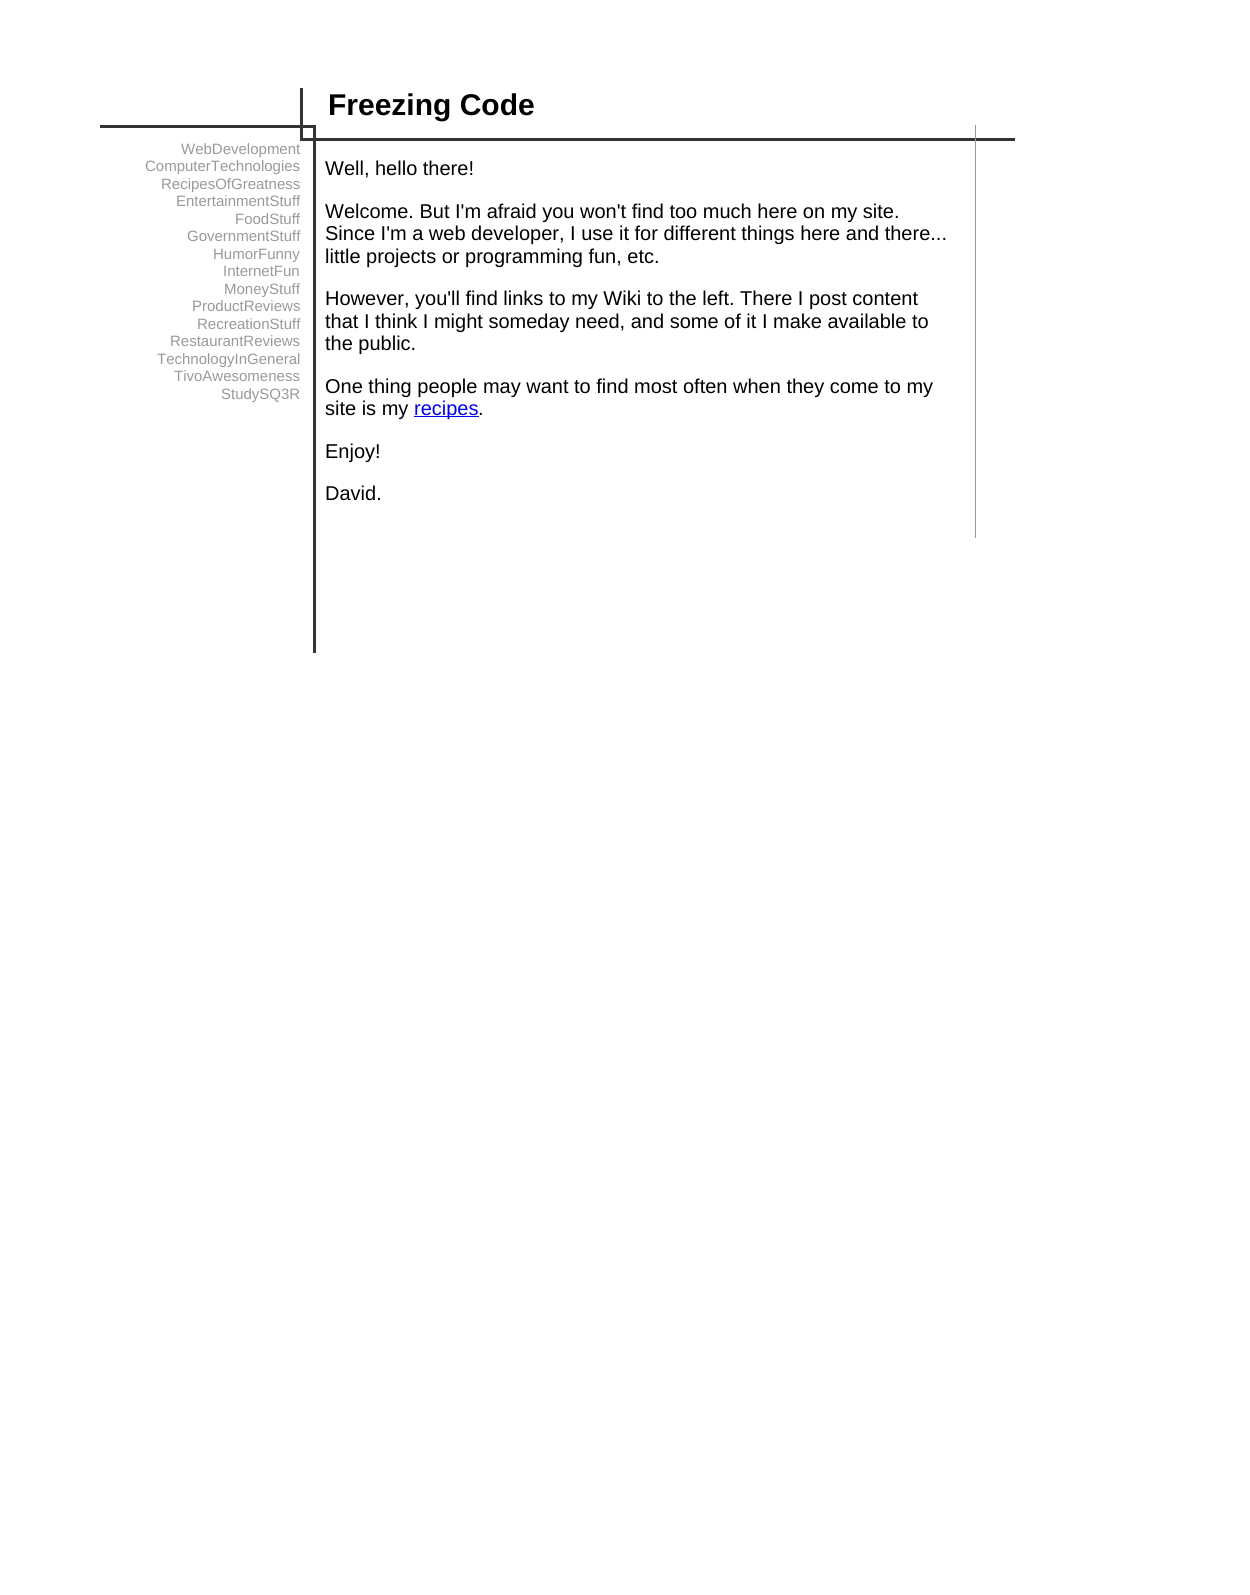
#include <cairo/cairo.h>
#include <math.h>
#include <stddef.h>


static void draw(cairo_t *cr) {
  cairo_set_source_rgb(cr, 1, 1, 1);
  cairo_paint(cr);
  cairo_set_source_rgb(cr, 52 / 255.0, 52 / 255.0, 52 / 255.0);
  cairo_rectangle(cr, 300, 138, 715, 3);
  cairo_fill(cr);
  cairo_rectangle(cr, 300, 88, 3, 52);
  cairo_fill(cr);
  cairo_rectangle(cr, 100, 125, 215, 3);
  cairo_fill(cr);
  cairo_rectangle(cr, 313, 125, 3, 528);
  cairo_fill(cr);
  cairo_set_source_rgb(cr, 153 / 255.0, 153 / 255.0, 153 / 255.0);
  cairo_rectangle(cr, 975, 125, 1, 413);
  cairo_fill(cr);
  cairo_set_source_rgb(cr, 0, 0, 238 / 255.0);
  cairo_rectangle(cr, 414, 416, 65, 1);
  cairo_fill(cr);
  cairo_select_font_face(cr, "Liberation Sans", CAIRO_FONT_SLANT_NORMAL, CAIRO_FONT_WEIGHT_BOLD);
  cairo_set_font_size(cr, 30);
  cairo_set_source_rgb(cr, 0, 0, 0);
  cairo_move_to(cr, 328, 115);
  cairo_show_text(cr, "Freezing Code");
  cairo_select_font_face(cr, "Liberation Sans", CAIRO_FONT_SLANT_NORMAL, CAIRO_FONT_WEIGHT_NORMAL);
  cairo_set_font_size(cr, 15);
  cairo_set_source_rgb(cr, 153 / 255.0, 153 / 255.0, 153 / 255.0);
  cairo_move_to(cr, 181, 154);
  cairo_show_text(cr, "WebDevelopment");
  cairo_move_to(cr, 145, 171);
  cairo_show_text(cr, "ComputerTechnologies");
  cairo_move_to(cr, 161, 189);
  cairo_show_text(cr, "RecipesOfGreatness");
  cairo_move_to(cr, 176, 206);
  cairo_show_text(cr, "EntertainmentStuff");
  cairo_move_to(cr, 235, 224);
  cairo_show_text(cr, "FoodStuff");
  cairo_move_to(cr, 187, 241);
  cairo_show_text(cr, "GovernmentStuff");
  cairo_move_to(cr, 213, 259);
  cairo_show_text(cr, "HumorFunny");
  cairo_move_to(cr, 223, 276);
  cairo_show_text(cr, "InternetFun");
  cairo_move_to(cr, 224, 294);
  cairo_show_text(cr, "MoneyStuff");
  cairo_move_to(cr, 192, 311);
  cairo_show_text(cr, "ProductReviews");
  cairo_move_to(cr, 197, 329);
  cairo_show_text(cr, "RecreationStuff");
  cairo_move_to(cr, 170, 346);
  cairo_show_text(cr, "RestaurantReviews");
  cairo_move_to(cr, 157, 364);
  cairo_show_text(cr, "TechnologyInGeneral");
  cairo_move_to(cr, 174, 381);
  cairo_show_text(cr, "TivoAwesomeness");
  cairo_move_to(cr, 221, 399);
  cairo_show_text(cr, "StudySQ3R");
  cairo_set_font_size(cr, 20);
  cairo_set_source_rgb(cr, 0, 0, 0);
  cairo_move_to(cr, 325, 175);
  cairo_show_text(cr, "Well, hello there!");
  cairo_move_to(cr, 325, 218);
  cairo_show_text(cr, "Welcome. But I'm afraid you won't find too much here on my site.");
  cairo_move_to(cr, 325, 240);
  cairo_show_text(cr, "Since I'm a web developer, I use it for different things here and there...");
  cairo_move_to(cr, 325, 263);
  cairo_show_text(cr, "little projects or programming fun, etc.");
  cairo_move_to(cr, 325, 305);
  cairo_show_text(cr, "However, you'll find links to my Wiki to the left. There I post content");
  cairo_move_to(cr, 325, 328);
  cairo_show_text(cr, "that I think I might someday need, and some of it I make available to");
  cairo_move_to(cr, 325, 350);
  cairo_show_text(cr, "the public.");
  cairo_move_to(cr, 325, 393);
  cairo_show_text(cr, "One thing people may want to find most often when they come to my");
  cairo_move_to(cr, 325, 415);
  cairo_show_text(cr, "site is my");
  cairo_set_source_rgb(cr, 0, 0, 238 / 255.0);
  cairo_move_to(cr, 414, 415);
  cairo_show_text(cr, "recipes");
  cairo_set_source_rgb(cr, 0, 0, 0);
  cairo_move_to(cr, 478, 415);
  cairo_show_text(cr, ".");
  cairo_move_to(cr, 325, 458);
  cairo_show_text(cr, "Enjoy!");
  cairo_move_to(cr, 325, 500);
  cairo_show_text(cr, "David.");
}

int main(void) {
  cairo_surface_t *surface = cairo_image_surface_create(CAIRO_FORMAT_RGB24, 1250, 1595);
  cairo_t *cr = cairo_create(surface);
  cairo_font_options_t *options = cairo_font_options_create();
  cairo_font_options_set_hint_metrics(options, CAIRO_HINT_METRICS_OFF);
  cairo_font_options_set_hint_style(options, CAIRO_HINT_STYLE_NONE);
  cairo_set_font_options(cr, options);
  cairo_set_miter_limit(cr, 4);
  draw(cr);
  cairo_surface_write_to_png(surface, "out.png");
  cairo_font_options_destroy(options);
  cairo_destroy(cr);
  cairo_surface_destroy(surface);
  return 0;
}
